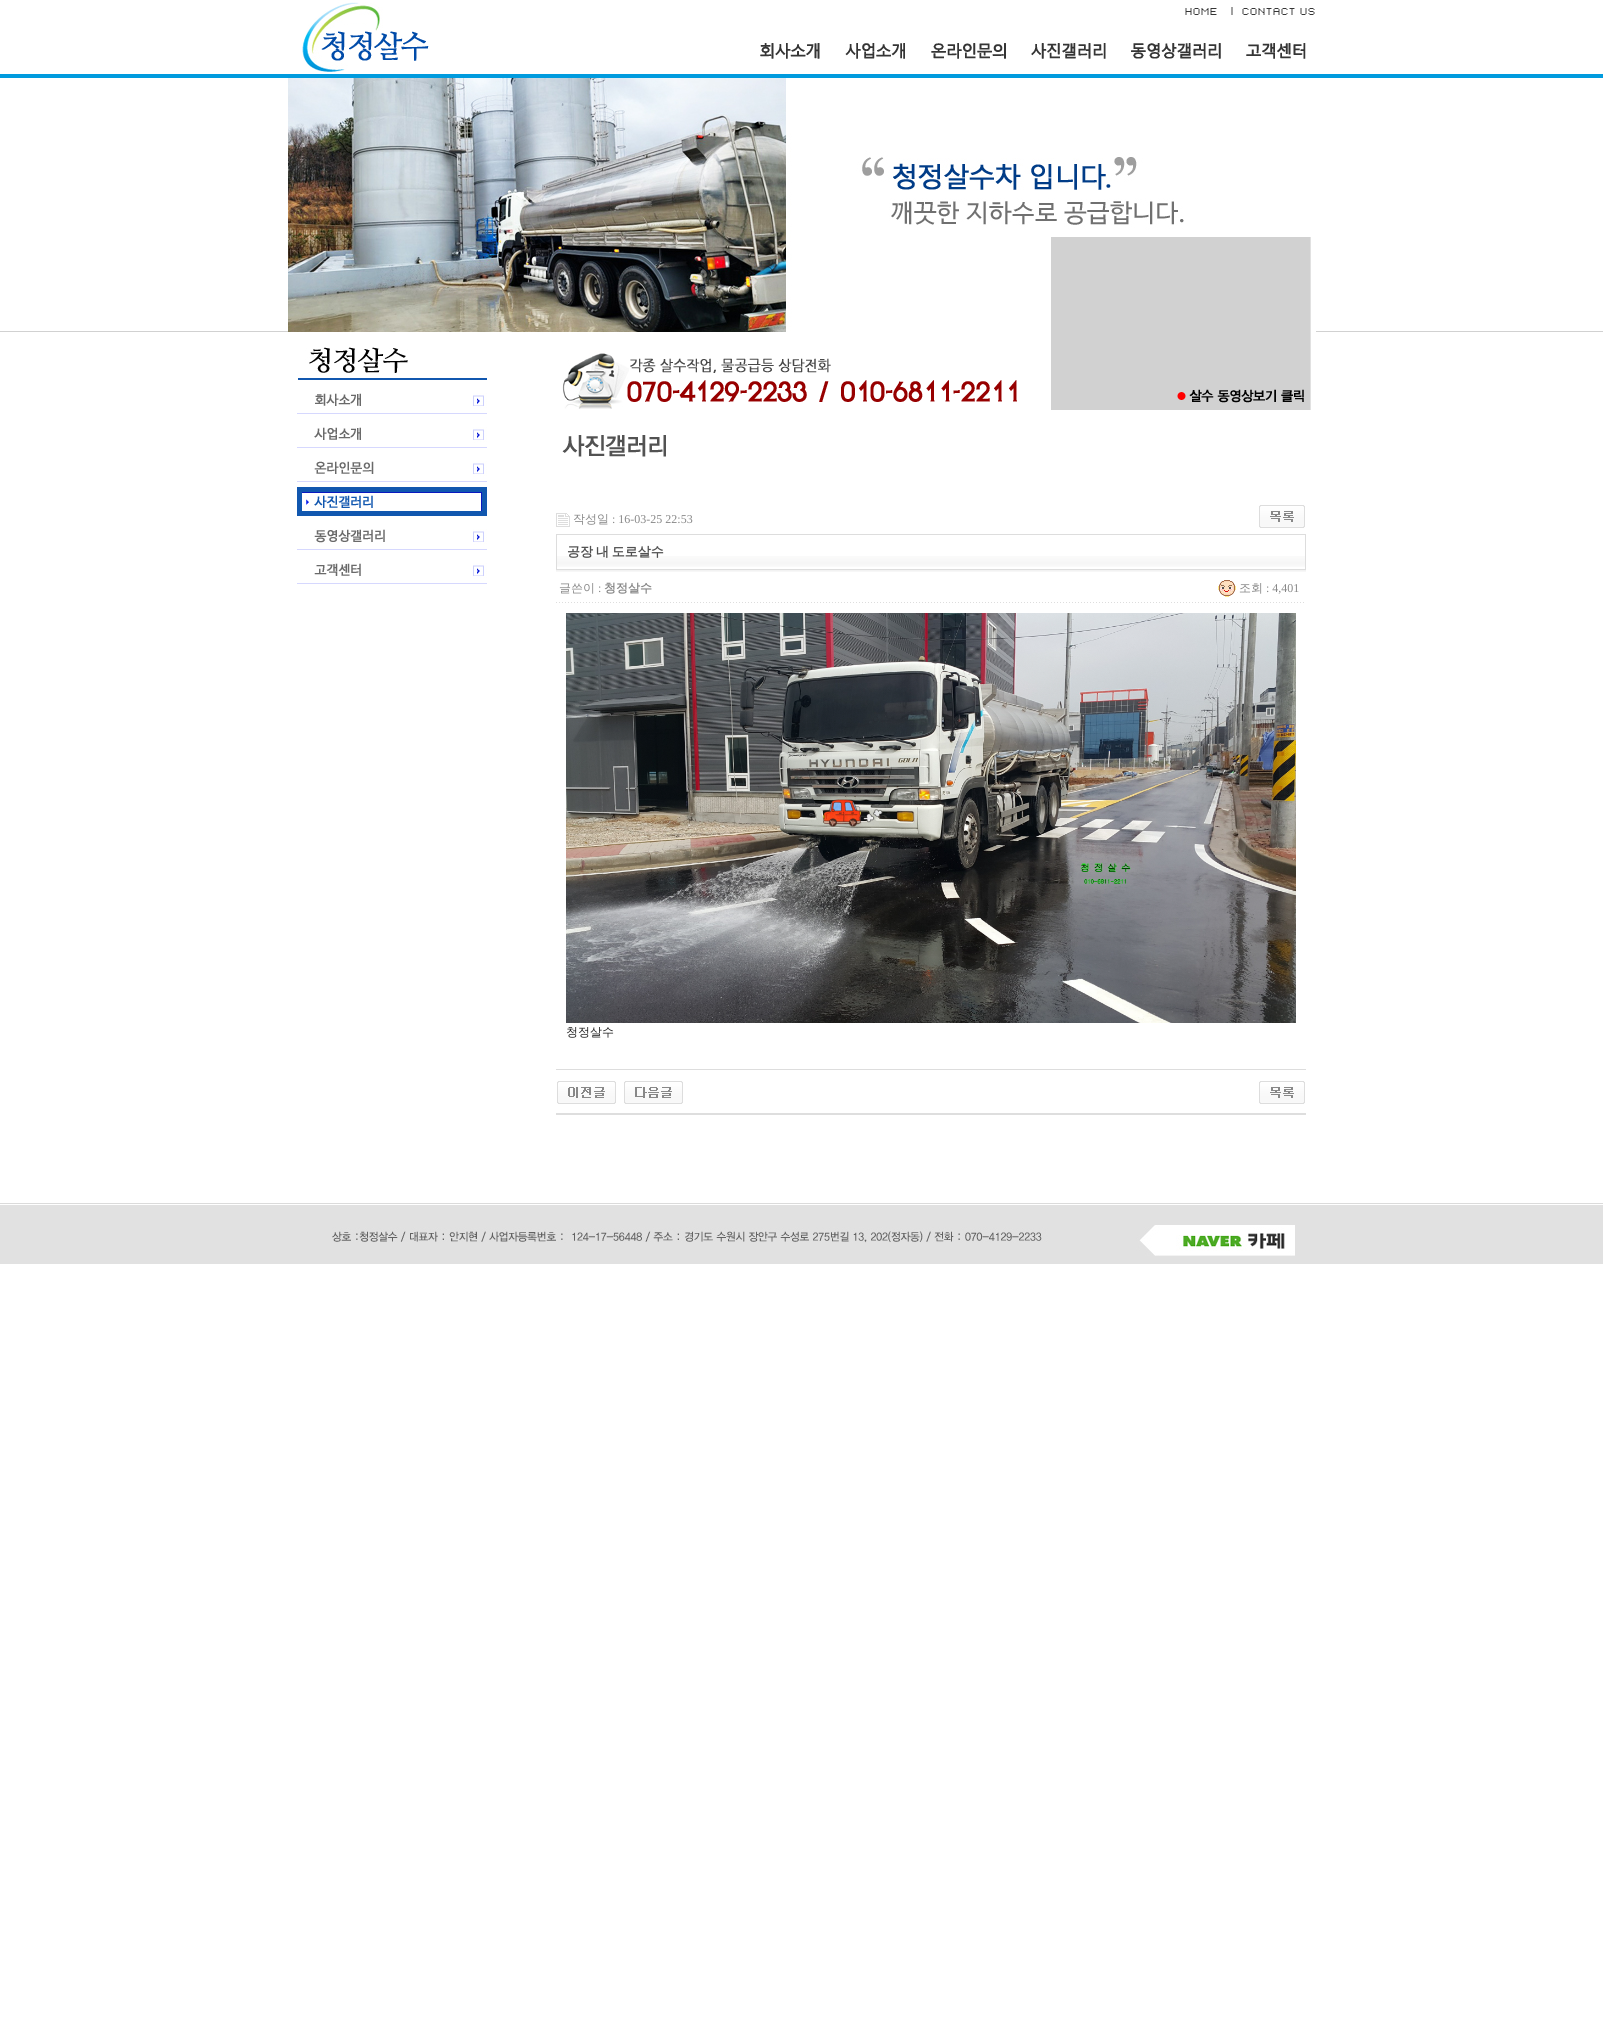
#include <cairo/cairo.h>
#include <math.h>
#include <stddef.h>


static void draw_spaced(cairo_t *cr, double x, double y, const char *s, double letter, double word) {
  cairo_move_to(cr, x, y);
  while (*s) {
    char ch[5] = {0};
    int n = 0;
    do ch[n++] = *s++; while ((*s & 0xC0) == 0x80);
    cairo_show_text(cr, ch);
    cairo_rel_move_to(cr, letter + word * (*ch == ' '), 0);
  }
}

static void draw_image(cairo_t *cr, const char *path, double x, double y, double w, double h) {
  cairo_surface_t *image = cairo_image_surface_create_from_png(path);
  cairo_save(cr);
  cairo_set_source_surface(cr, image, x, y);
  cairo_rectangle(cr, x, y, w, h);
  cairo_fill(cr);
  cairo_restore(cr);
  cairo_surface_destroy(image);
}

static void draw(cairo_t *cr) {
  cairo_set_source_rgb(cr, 1, 1, 1);
  cairo_paint(cr);
  cairo_set_source_rgb(cr, 209 / 255.0, 209 / 255.0, 209 / 255.0);
  cairo_rectangle(cr, 0, 331, 1603, 1);
  cairo_fill(cr);
  draw_image(cr, "images/18.png", 288, 78, 1028, 254);
  draw_image(cr, "images/1.png", 562, 237, 749, 173);
  draw_image(cr, "images/2.png", 297, 347, 190, 33);
  draw_image(cr, "images/3.png", 297, 393, 190, 21);
  draw_image(cr, "images/4.png", 297, 427, 190, 21);
  draw_image(cr, "images/5.png", 297, 461, 190, 21);
  draw_image(cr, "images/6.png", 297, 487, 190, 29);
  draw_image(cr, "images/7.png", 297, 529, 190, 21);
  draw_image(cr, "images/8.png", 297, 563, 190, 21);
  cairo_set_source_rgb(cr, 0, 155 / 255.0, 222 / 255.0);
  cairo_rectangle(cr, 0, 74, 1603, 4);
  cairo_fill(cr);
  draw_image(cr, "images/9.png", 302, 2, 127, 70);
  draw_image(cr, "images/10.png", 1185, 8, 32, 7);
  cairo_set_source_rgb(cr, 161 / 255.0, 161 / 255.0, 161 / 255.0);
  cairo_rectangle(cr, 1231, 7, 2, 8);
  cairo_fill(cr);
  draw_image(cr, "images/11.png", 1242, 8, 73, 7);
  draw_image(cr, "images/12.png", 760, 43, 60, 16);
  draw_image(cr, "images/13.png", 845, 43, 60, 16);
  draw_image(cr, "images/14.png", 931, 43, 75, 16);
  draw_image(cr, "images/15.png", 1031, 43, 75, 16);
  draw_image(cr, "images/16.png", 1131, 43, 90, 16);
  draw_image(cr, "images/17.png", 1246, 43, 60, 16);
  draw_image(cr, "images/19.png", 562, 435, 104, 22);
  draw_image(cr, "images/20.png", 556, 513, 14, 14);
  draw_image(cr, "images/21.png", 1259, 505, 46, 23);
  draw_image(cr, "images/22.png", 557, 556, 748, 11);
  cairo_rectangle(cr, 556.5, 534.5, 749, 35);
  cairo_set_source_rgb(cr, 221 / 255.0, 221 / 255.0, 221 / 255.0);
  cairo_set_line_width(cr, 1);
  cairo_stroke(cr);
  draw_image(cr, "images/23.png", 556, 570, 750, 2);
  draw_image(cr, "images/24.png", 556, 602, 748, 1);
  draw_image(cr, "images/25.png", 1218, 580, 18, 17);
  draw_image(cr, "images/26.png", 566, 613, 730, 410);
  cairo_rectangle(cr, 556, 1069, 750, 1);
  cairo_fill(cr);
  draw_image(cr, "images/27.png", 557, 1081, 59, 23);
  draw_image(cr, "images/28.png", 624, 1081, 59, 23);
  draw_image(cr, "images/21.png", 1259, 1081, 46, 23);
  cairo_set_source_rgb(cr, 222 / 255.0, 222 / 255.0, 222 / 255.0);
  cairo_rectangle(cr, 556, 1113, 750, 2);
  cairo_fill(cr);
  draw_image(cr, "images/29.png", 0, 1203, 1603, 61);
  draw_image(cr, "images/30.png", 332, 1225, 963, 31);
  cairo_select_font_face(cr, "WenQuanYi Zen Hei Medium", CAIRO_FONT_SLANT_NORMAL, CAIRO_FONT_WEIGHT_NORMAL);
  cairo_set_font_size(cr, 12);
  cairo_set_source_rgb(cr, 136 / 255.0, 136 / 255.0, 136 / 255.0);
  cairo_move_to(cr, 573, 523);
  cairo_show_text(cr, "작성일");
  cairo_select_font_face(cr, "Liberation Serif", CAIRO_FONT_SLANT_NORMAL, CAIRO_FONT_WEIGHT_NORMAL);
  cairo_move_to(cr, 612, 523);
  cairo_show_text(cr, ": 16-03-25 22:53");
  cairo_select_font_face(cr, "WenQuanYi Zen Hei", CAIRO_FONT_SLANT_NORMAL, CAIRO_FONT_WEIGHT_BOLD);
  cairo_set_font_size(cr, 13);
  cairo_set_source_rgb(cr, 80 / 255.0, 80 / 255.0, 80 / 255.0);
  draw_spaced(cr, 567, 556, "공장 내 도로살수", 0, -1);
  cairo_select_font_face(cr, "WenQuanYi Zen Hei Medium", CAIRO_FONT_SLANT_NORMAL, CAIRO_FONT_WEIGHT_NORMAL);
  cairo_set_font_size(cr, 12);
  cairo_set_source_rgb(cr, 136 / 255.0, 136 / 255.0, 136 / 255.0);
  cairo_move_to(cr, 559, 592);
  cairo_show_text(cr, "글쓴이");
  cairo_select_font_face(cr, "Liberation Serif", CAIRO_FONT_SLANT_NORMAL, CAIRO_FONT_WEIGHT_NORMAL);
  cairo_move_to(cr, 598, 592);
  cairo_show_text(cr, ":");
  cairo_select_font_face(cr, "WenQuanYi Zen Hei", CAIRO_FONT_SLANT_NORMAL, CAIRO_FONT_WEIGHT_BOLD);
  cairo_move_to(cr, 604, 592);
  cairo_show_text(cr, "청정살수");
  cairo_select_font_face(cr, "WenQuanYi Zen Hei Medium", CAIRO_FONT_SLANT_NORMAL, CAIRO_FONT_WEIGHT_NORMAL);
  cairo_move_to(cr, 1239, 592);
  cairo_show_text(cr, "조회");
  cairo_select_font_face(cr, "Liberation Serif", CAIRO_FONT_SLANT_NORMAL, CAIRO_FONT_WEIGHT_NORMAL);
  cairo_move_to(cr, 1266, 592);
  cairo_show_text(cr, ": 4,401");
  cairo_select_font_face(cr, "WenQuanYi Zen Hei Medium", CAIRO_FONT_SLANT_NORMAL, CAIRO_FONT_WEIGHT_NORMAL);
  cairo_set_source_rgb(cr, 34 / 255.0, 34 / 255.0, 34 / 255.0);
  cairo_move_to(cr, 566, 1036);
  cairo_show_text(cr, "청정살수");
}

int main(void) {
  cairo_surface_t *surface = cairo_image_surface_create(CAIRO_FORMAT_RGB24, 1603, 2024);
  cairo_t *cr = cairo_create(surface);
  cairo_font_options_t *options = cairo_font_options_create();
  cairo_font_options_set_hint_metrics(options, CAIRO_HINT_METRICS_OFF);
  cairo_font_options_set_hint_style(options, CAIRO_HINT_STYLE_NONE);
  cairo_set_font_options(cr, options);
  cairo_set_miter_limit(cr, 4);
  draw(cr);
  cairo_surface_write_to_png(surface, "out.png");
  cairo_font_options_destroy(options);
  cairo_destroy(cr);
  cairo_surface_destroy(surface);
  return 0;
}
